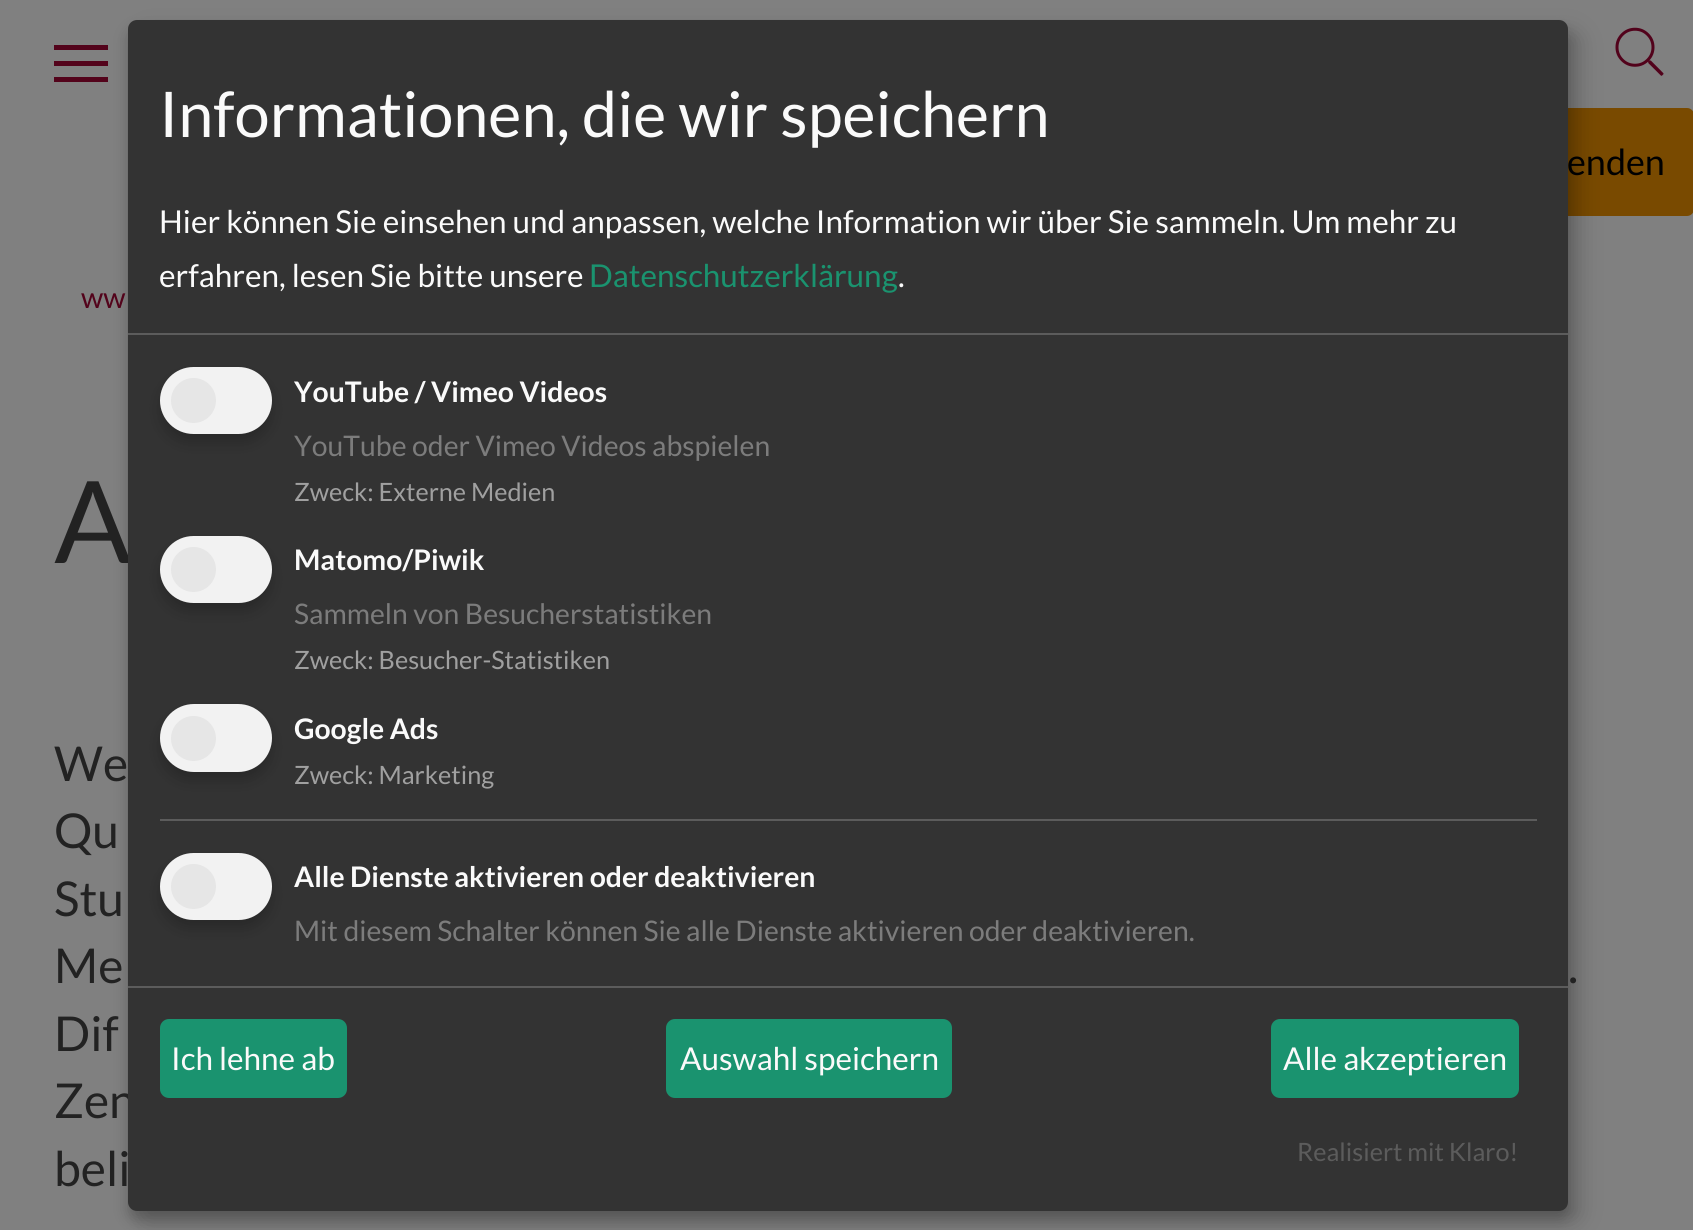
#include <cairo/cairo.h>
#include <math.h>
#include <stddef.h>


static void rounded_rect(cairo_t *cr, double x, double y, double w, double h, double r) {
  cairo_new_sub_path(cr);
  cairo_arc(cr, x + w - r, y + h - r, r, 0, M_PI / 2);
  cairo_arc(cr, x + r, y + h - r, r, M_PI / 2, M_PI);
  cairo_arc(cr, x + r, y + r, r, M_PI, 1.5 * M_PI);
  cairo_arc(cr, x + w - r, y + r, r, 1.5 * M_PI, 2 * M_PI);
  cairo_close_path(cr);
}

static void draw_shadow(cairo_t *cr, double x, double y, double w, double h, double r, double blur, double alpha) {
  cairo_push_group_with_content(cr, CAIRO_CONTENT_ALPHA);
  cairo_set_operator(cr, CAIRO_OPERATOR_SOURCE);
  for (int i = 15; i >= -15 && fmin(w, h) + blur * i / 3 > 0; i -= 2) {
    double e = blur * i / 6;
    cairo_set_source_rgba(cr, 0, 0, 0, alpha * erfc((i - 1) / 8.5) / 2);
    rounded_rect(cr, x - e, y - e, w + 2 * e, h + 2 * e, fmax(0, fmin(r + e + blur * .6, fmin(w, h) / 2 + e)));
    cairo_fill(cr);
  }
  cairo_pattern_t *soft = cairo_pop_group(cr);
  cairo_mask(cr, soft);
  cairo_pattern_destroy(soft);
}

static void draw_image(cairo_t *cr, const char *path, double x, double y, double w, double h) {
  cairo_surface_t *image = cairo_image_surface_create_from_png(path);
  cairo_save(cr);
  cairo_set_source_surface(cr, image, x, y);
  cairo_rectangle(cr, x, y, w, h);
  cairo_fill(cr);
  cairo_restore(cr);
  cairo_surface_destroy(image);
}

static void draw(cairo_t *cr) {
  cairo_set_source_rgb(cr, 128 / 255.0, 128 / 255.0, 128 / 255.0);
  cairo_paint(cr);
  cairo_set_source_rgb(cr, 83 / 255.0, 3 / 255.0, 27 / 255.0);
  cairo_rectangle(cr, 54, 61, 54, 5);
  cairo_fill(cr);
  cairo_rectangle(cr, 54, 45, 54, 5);
  cairo_fill(cr);
  cairo_rectangle(cr, 54, 77, 54, 5);
  cairo_fill(cr);
  cairo_set_source_rgb(cr, 121 / 255.0, 74 / 255.0, 0);
  rounded_rect(cr, 1272, 109, 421, 106, 6);
  cairo_fill_preserve(cr);
  cairo_stroke(cr);
  cairo_set_source_rgb(cr, 0, 0, 0);
  draw_shadow(cr, 140, 32, 1440, 1190, 9, 11, 0.19);
  draw_shadow(cr, 128, 29, 1440, 1191, 9, 7, 0.2);
  draw_image(cr, "images/1.png", 1615, 27, 49, 49);
  cairo_select_font_face(cr, "Lato", CAIRO_FONT_SLANT_NORMAL, CAIRO_FONT_WEIGHT_NORMAL);
  cairo_set_font_size(cr, 36);
  cairo_set_source_rgb(cr, 0, 0, 0);
  cairo_move_to(cr, 1567, 175);
  cairo_show_text(cr, "enden");
  cairo_set_font_size(cr, 29);
  cairo_set_source_rgb(cr, 83 / 255.0, 3 / 255.0, 27 / 255.0);
  cairo_move_to(cr, 81, 308);
  cairo_show_text(cr, "ww");
  cairo_set_font_size(cr, 114);
  cairo_set_source_rgb(cr, 34 / 255.0, 34 / 255.0, 34 / 255.0);
  cairo_move_to(cr, 54, 563);
  cairo_show_text(cr, "A");
  cairo_set_font_size(cr, 48);
  cairo_move_to(cr, 54, 781);
  cairo_show_text(cr, "We");
  cairo_move_to(cr, 54, 848);
  cairo_show_text(cr, "Qu");
  cairo_move_to(cr, 54, 916);
  cairo_show_text(cr, "Stu");
  cairo_move_to(cr, 54, 983);
  cairo_show_text(cr, "Me");
  cairo_move_to(cr, 1568, 983);
  cairo_show_text(cr, ".");
  cairo_move_to(cr, 54, 1051);
  cairo_show_text(cr, "Dif");
  cairo_move_to(cr, 54, 1118);
  cairo_show_text(cr, "Zen");
  cairo_set_source_rgb(cr, 51 / 255.0, 51 / 255.0, 51 / 255.0);
  rounded_rect(cr, 128, 20, 1440, 1191, 9);
  cairo_fill(cr);
  cairo_set_source_rgb(cr, 0, 0, 0);
  draw_shadow(cr, 160, 862, 112, 67, 33.5, 7, 0.2);
  cairo_set_source_rgb(cr, 242 / 255.0, 242 / 255.0, 242 / 255.0);
  rounded_rect(cr, 160, 853, 112, 67, 33.5);
  cairo_fill(cr);
  cairo_set_source_rgb(cr, 230 / 255.0, 230 / 255.0, 230 / 255.0);
  cairo_arc(cr, 193.5, 886.5, 22.5, 0, 2 * M_PI);
  cairo_fill(cr);
  cairo_set_font_size(cr, 28.35);
  cairo_set_source_rgb(cr, 124 / 255.0, 124 / 255.0, 124 / 255.0);
  cairo_move_to(cr, 294, 941);
  cairo_show_text(cr, "Mit diesem Schalter können Sie alle Dienste aktivieren oder deaktivieren.");
  cairo_select_font_face(cr, "Lato", CAIRO_FONT_SLANT_NORMAL, CAIRO_FONT_WEIGHT_BOLD);
  cairo_set_source_rgb(cr, 250 / 255.0, 250 / 255.0, 250 / 255.0);
  cairo_move_to(cr, 294, 887);
  cairo_show_text(cr, "Alle Dienste aktivieren oder deaktivieren");
  cairo_set_source_rgb(cr, 92 / 255.0, 92 / 255.0, 92 / 255.0);
  cairo_rectangle(cr, 160, 819, 1377, 2);
  cairo_fill(cr);
  cairo_set_source_rgb(cr, 0, 0, 0);
  draw_shadow(cr, 160, 713, 112, 68, 34, 7, 0.2);
  cairo_set_source_rgb(cr, 242 / 255.0, 242 / 255.0, 242 / 255.0);
  rounded_rect(cr, 160, 704, 112, 68, 34);
  cairo_fill(cr);
  cairo_set_source_rgb(cr, 230 / 255.0, 230 / 255.0, 230 / 255.0);
  cairo_arc(cr, 193.5, 738.5, 22.5, 0, 2 * M_PI);
  cairo_fill(cr);
  cairo_select_font_face(cr, "Lato", CAIRO_FONT_SLANT_NORMAL, CAIRO_FONT_WEIGHT_NORMAL);
  cairo_set_font_size(cr, 25.25);
  cairo_set_source_rgb(cr, 160 / 255.0, 160 / 255.0, 160 / 255.0);
  cairo_move_to(cr, 294, 784);
  cairo_show_text(cr, "Zweck: Marketing");
  cairo_select_font_face(cr, "Lato", CAIRO_FONT_SLANT_NORMAL, CAIRO_FONT_WEIGHT_BOLD);
  cairo_set_font_size(cr, 28.35);
  cairo_set_source_rgb(cr, 250 / 255.0, 250 / 255.0, 250 / 255.0);
  cairo_move_to(cr, 294, 739);
  cairo_show_text(cr, "Google Ads");
  cairo_set_source_rgb(cr, 0, 0, 0);
  draw_shadow(cr, 160, 545, 112, 67, 33.5, 7, 0.2);
  cairo_set_source_rgb(cr, 242 / 255.0, 242 / 255.0, 242 / 255.0);
  rounded_rect(cr, 160, 536, 112, 67, 33.5);
  cairo_fill(cr);
  cairo_set_source_rgb(cr, 230 / 255.0, 230 / 255.0, 230 / 255.0);
  cairo_arc(cr, 193.5, 569.5, 22.5, 0, 2 * M_PI);
  cairo_fill(cr);
  cairo_select_font_face(cr, "Lato", CAIRO_FONT_SLANT_NORMAL, CAIRO_FONT_WEIGHT_NORMAL);
  cairo_set_font_size(cr, 25.25);
  cairo_set_source_rgb(cr, 160 / 255.0, 160 / 255.0, 160 / 255.0);
  cairo_move_to(cr, 294, 669);
  cairo_show_text(cr, "Zweck: Besucher-Statistiken");
  cairo_set_font_size(cr, 28.35);
  cairo_set_source_rgb(cr, 124 / 255.0, 124 / 255.0, 124 / 255.0);
  cairo_move_to(cr, 294, 624);
  cairo_show_text(cr, "Sammeln von Besucherstatistiken");
  cairo_select_font_face(cr, "Lato", CAIRO_FONT_SLANT_NORMAL, CAIRO_FONT_WEIGHT_BOLD);
  cairo_set_source_rgb(cr, 250 / 255.0, 250 / 255.0, 250 / 255.0);
  cairo_move_to(cr, 294, 570);
  cairo_show_text(cr, "Matomo/Piwik");
  cairo_set_source_rgb(cr, 0, 0, 0);
  draw_shadow(cr, 160, 376, 112, 67, 33.5, 7, 0.2);
  cairo_set_source_rgb(cr, 242 / 255.0, 242 / 255.0, 242 / 255.0);
  rounded_rect(cr, 160, 367, 112, 67, 33.5);
  cairo_fill(cr);
  cairo_set_source_rgb(cr, 230 / 255.0, 230 / 255.0, 230 / 255.0);
  cairo_arc(cr, 193.5, 400.5, 22.5, 0, 2 * M_PI);
  cairo_fill(cr);
  cairo_select_font_face(cr, "Lato", CAIRO_FONT_SLANT_NORMAL, CAIRO_FONT_WEIGHT_NORMAL);
  cairo_set_font_size(cr, 25.25);
  cairo_set_source_rgb(cr, 160 / 255.0, 160 / 255.0, 160 / 255.0);
  cairo_move_to(cr, 294, 501);
  cairo_show_text(cr, "Zweck: Externe Medien");
  cairo_set_font_size(cr, 28.35);
  cairo_set_source_rgb(cr, 124 / 255.0, 124 / 255.0, 124 / 255.0);
  cairo_move_to(cr, 294, 456);
  cairo_show_text(cr, "YouTube oder Vimeo Videos abspielen");
  cairo_select_font_face(cr, "Lato", CAIRO_FONT_SLANT_NORMAL, CAIRO_FONT_WEIGHT_BOLD);
  cairo_set_source_rgb(cr, 250 / 255.0, 250 / 255.0, 250 / 255.0);
  cairo_move_to(cr, 294, 402);
  cairo_show_text(cr, "YouTube / Vimeo Videos");
  cairo_select_font_face(cr, "Lato", CAIRO_FONT_SLANT_NORMAL, CAIRO_FONT_WEIGHT_NORMAL);
  cairo_set_font_size(cr, 25.25);
  cairo_set_source_rgb(cr, 92 / 255.0, 92 / 255.0, 92 / 255.0);
  cairo_move_to(cr, 1297, 1161);
  cairo_show_text(cr, "Realisiert mit Klaro!");
  cairo_set_source_rgb(cr, 26 / 255.0, 147 / 255.0, 111 / 255.0);
  rounded_rect(cr, 1271, 1019, 248, 79, 9);
  cairo_fill(cr);
  cairo_set_font_size(cr, 31.5);
  cairo_set_source_rgb(cr, 250 / 255.0, 250 / 255.0, 250 / 255.0);
  cairo_move_to(cr, 1283, 1070);
  cairo_show_text(cr, "Alle akzeptieren");
  cairo_set_source_rgb(cr, 26 / 255.0, 147 / 255.0, 111 / 255.0);
  rounded_rect(cr, 666, 1019, 286, 79, 9);
  cairo_fill(cr);
  cairo_set_source_rgb(cr, 250 / 255.0, 250 / 255.0, 250 / 255.0);
  cairo_move_to(cr, 680, 1070);
  cairo_show_text(cr, "Auswahl speichern");
  cairo_set_source_rgb(cr, 26 / 255.0, 147 / 255.0, 111 / 255.0);
  rounded_rect(cr, 160, 1019, 187, 79, 9);
  cairo_fill(cr);
  cairo_set_source_rgb(cr, 250 / 255.0, 250 / 255.0, 250 / 255.0);
  cairo_move_to(cr, 171, 1070);
  cairo_show_text(cr, "Ich lehne ab");
  cairo_move_to(cr, 898, 287);
  cairo_show_text(cr, ".");
  cairo_set_source_rgb(cr, 26 / 255.0, 147 / 255.0, 111 / 255.0);
  cairo_move_to(cr, 589, 287);
  cairo_show_text(cr, "Datenschutzerklärung");
  cairo_set_source_rgb(cr, 250 / 255.0, 250 / 255.0, 250 / 255.0);
  cairo_move_to(cr, 159, 287);
  cairo_show_text(cr, "erfahren, lesen Sie bitte unsere");
  cairo_move_to(cr, 159, 233);
  cairo_show_text(cr, "Hier können Sie einsehen und anpassen, welche Information wir über Sie sammeln. Um mehr zu");
  cairo_set_font_size(cr, 63);
  cairo_move_to(cr, 159, 137);
  cairo_show_text(cr, "Informationen, die wir speichern");
  cairo_set_source_rgb(cr, 92 / 255.0, 92 / 255.0, 92 / 255.0);
  cairo_rectangle(cr, 128, 986, 1440, 2);
  cairo_fill(cr);
  cairo_rectangle(cr, 128, 333, 1440, 2);
  cairo_fill(cr);
  cairo_set_font_size(cr, 48);
  cairo_set_source_rgb(cr, 34 / 255.0, 34 / 255.0, 34 / 255.0);
  cairo_move_to(cr, 54, 1186);
  cairo_show_text(cr, "beli");
}

int main(void) {
  cairo_surface_t *surface = cairo_image_surface_create(CAIRO_FORMAT_RGB24, 1693, 1230);
  cairo_t *cr = cairo_create(surface);
  cairo_font_options_t *options = cairo_font_options_create();
  cairo_font_options_set_hint_metrics(options, CAIRO_HINT_METRICS_OFF);
  cairo_font_options_set_hint_style(options, CAIRO_HINT_STYLE_NONE);
  cairo_set_font_options(cr, options);
  cairo_set_miter_limit(cr, 4);
  draw(cr);
  cairo_surface_write_to_png(surface, "out.png");
  cairo_font_options_destroy(options);
  cairo_destroy(cr);
  cairo_surface_destroy(surface);
  return 0;
}
